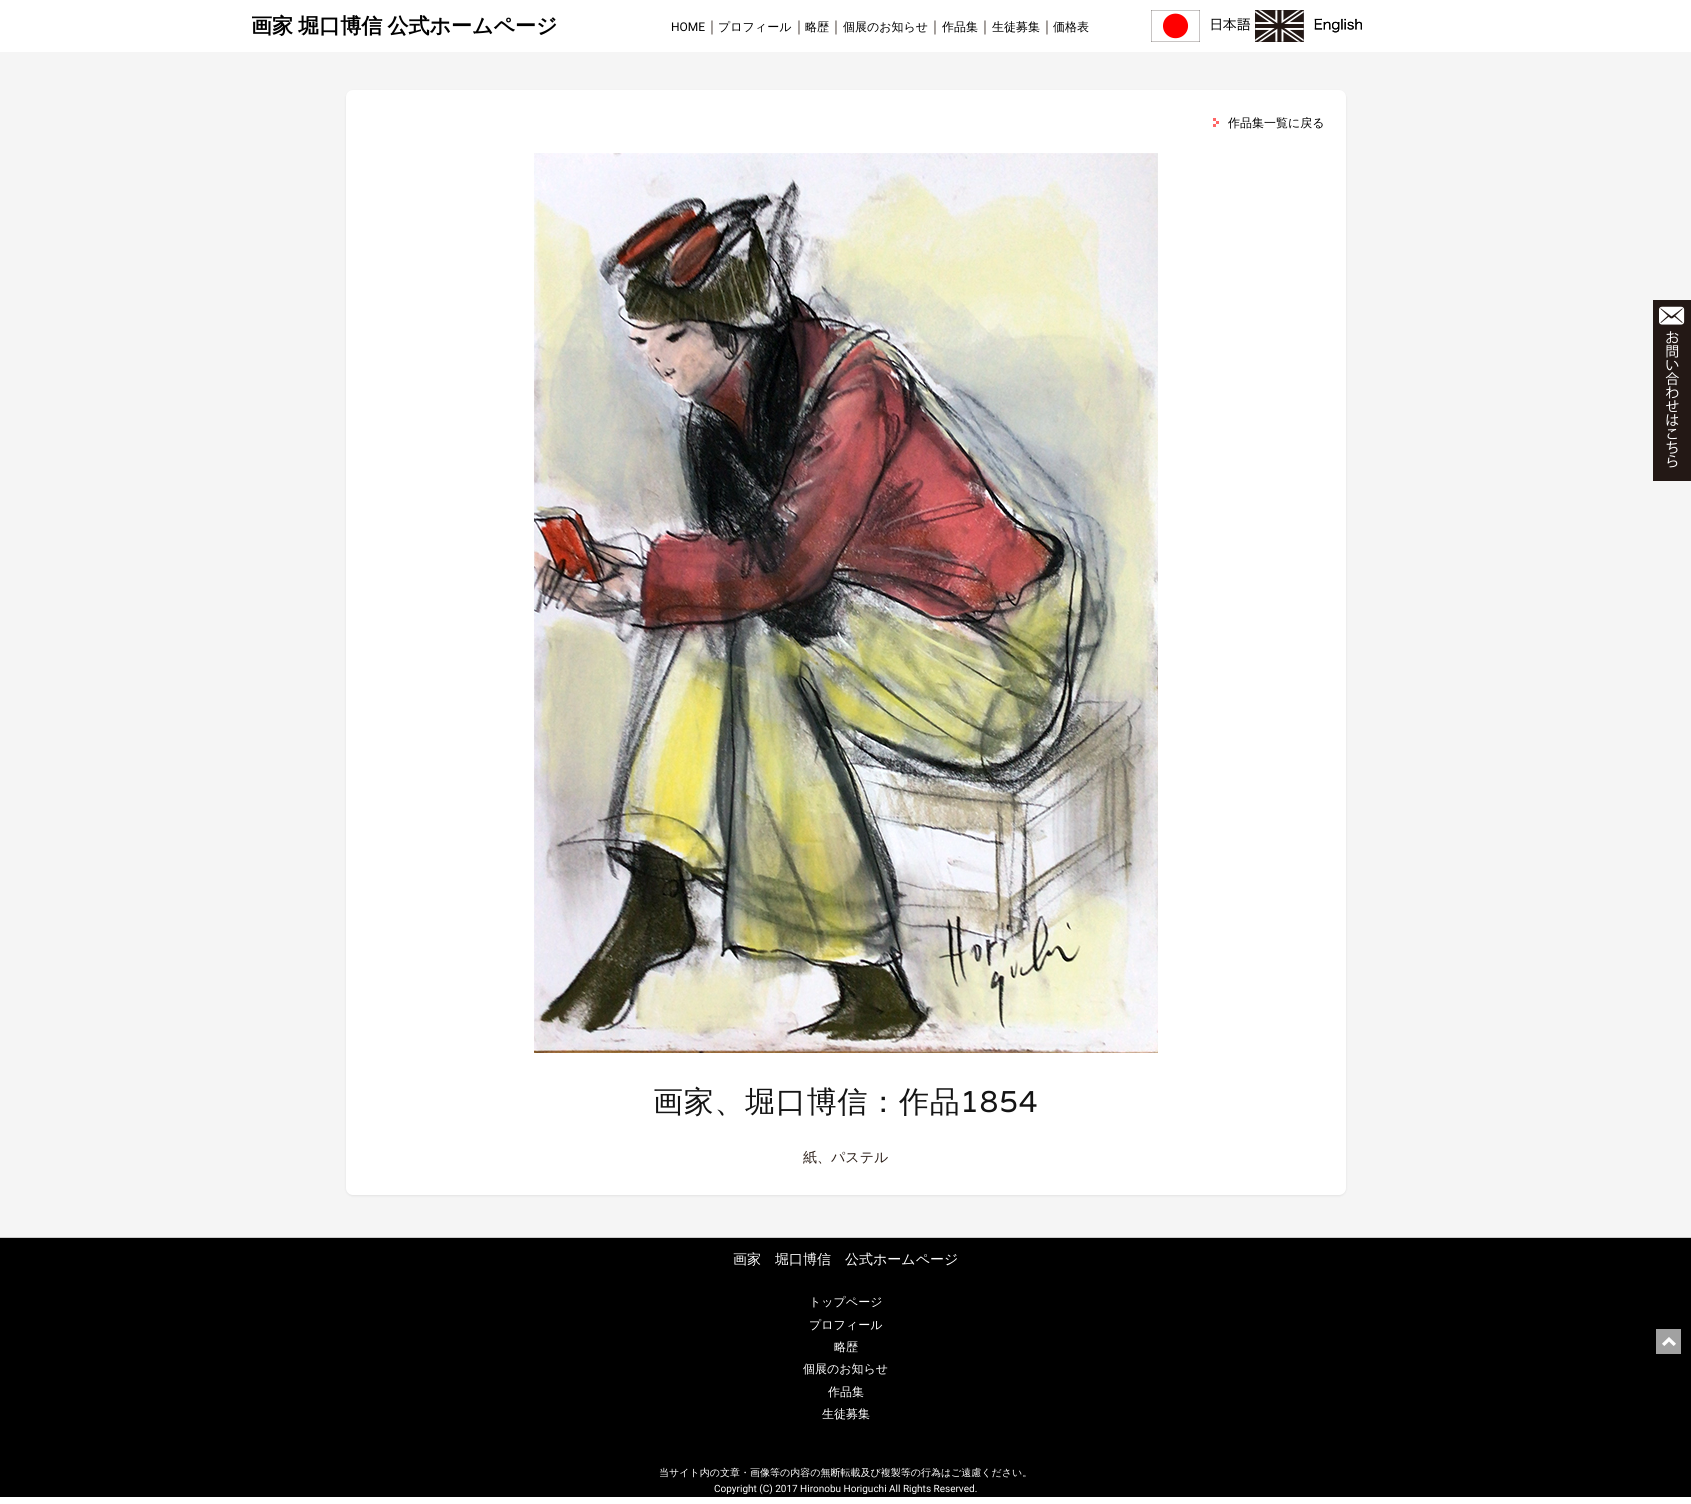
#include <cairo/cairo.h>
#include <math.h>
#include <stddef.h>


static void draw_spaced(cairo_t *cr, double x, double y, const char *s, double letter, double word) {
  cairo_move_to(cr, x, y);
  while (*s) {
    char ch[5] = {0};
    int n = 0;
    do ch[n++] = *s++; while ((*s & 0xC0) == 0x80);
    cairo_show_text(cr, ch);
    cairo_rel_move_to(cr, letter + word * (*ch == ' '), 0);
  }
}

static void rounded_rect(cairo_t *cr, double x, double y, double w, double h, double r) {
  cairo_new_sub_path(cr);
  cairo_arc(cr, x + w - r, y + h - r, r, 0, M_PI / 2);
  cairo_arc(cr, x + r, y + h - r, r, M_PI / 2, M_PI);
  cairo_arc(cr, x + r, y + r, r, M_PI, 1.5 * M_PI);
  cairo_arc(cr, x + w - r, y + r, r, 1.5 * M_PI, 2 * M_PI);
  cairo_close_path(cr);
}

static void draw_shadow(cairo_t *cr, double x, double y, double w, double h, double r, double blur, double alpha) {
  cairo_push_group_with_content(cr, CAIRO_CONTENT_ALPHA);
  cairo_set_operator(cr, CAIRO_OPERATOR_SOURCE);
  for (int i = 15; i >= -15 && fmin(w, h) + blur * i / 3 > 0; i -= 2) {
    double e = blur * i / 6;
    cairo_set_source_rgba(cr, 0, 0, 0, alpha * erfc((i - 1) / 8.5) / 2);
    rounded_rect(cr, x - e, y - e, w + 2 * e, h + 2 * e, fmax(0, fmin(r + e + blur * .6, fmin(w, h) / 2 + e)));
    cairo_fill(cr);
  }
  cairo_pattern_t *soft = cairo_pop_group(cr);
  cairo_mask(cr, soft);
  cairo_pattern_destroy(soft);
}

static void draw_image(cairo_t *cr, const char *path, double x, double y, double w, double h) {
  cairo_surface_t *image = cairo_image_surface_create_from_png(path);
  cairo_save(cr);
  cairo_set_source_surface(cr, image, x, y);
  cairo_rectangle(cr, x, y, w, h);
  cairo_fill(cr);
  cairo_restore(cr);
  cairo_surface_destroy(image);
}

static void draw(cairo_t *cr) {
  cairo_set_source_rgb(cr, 1, 1, 1);
  cairo_paint(cr);
  draw_image(cr, "images/1.png", 1151, 10, 99, 32);
  draw_image(cr, "images/2.png", 1255, 10, 107, 32);
  cairo_set_source_rgb(cr, 245 / 255.0, 245 / 255.0, 245 / 255.0);
  cairo_rectangle(cr, 0, 52, 1691, 1185);
  cairo_fill(cr);
  cairo_set_source_rgb(cr, 50 / 255.0, 50 / 255.0, 50 / 255.0);
  draw_shadow(cr, 346, 91, 1000, 1105, 7, 1, 0.1);
  cairo_set_source_rgb(cr, 1, 1, 1);
  rounded_rect(cr, 346, 90, 1000, 1105, 7);
  cairo_fill(cr);
  draw_image(cr, "images/3.png", 1213, 118, 6, 9);
  draw_image(cr, "images/4.png", 534, 153, 624, 900);
  cairo_set_source_rgb(cr, 0, 0, 0);
  cairo_rectangle(cr, 0, 1238, 1691, 259);
  cairo_fill(cr);
  cairo_set_source_rgb(cr, 204 / 255.0, 204 / 255.0, 204 / 255.0);
  cairo_rectangle(cr, 0, 1237, 1691, 1);
  cairo_fill(cr);
  draw_image(cr, "images/5.png", 1653, 300, 38, 181);
  draw_image(cr, "images/6.png", 1656, 1329, 25, 25);
  cairo_select_font_face(cr, "WenQuanYi Zen Hei", CAIRO_FONT_SLANT_NORMAL, CAIRO_FONT_WEIGHT_BOLD);
  cairo_set_font_size(cr, 21);
  cairo_set_source_rgb(cr, 0, 0, 0);
  draw_spaced(cr, 251, 33, "画家 堀口博信 公式ホームページ", 0, -1);
  cairo_select_font_face(cr, "Roboto", CAIRO_FONT_SLANT_NORMAL, CAIRO_FONT_WEIGHT_NORMAL);
  cairo_set_font_size(cr, 12);
  cairo_move_to(cr, 671, 31);
  cairo_show_text(cr, "HOME");
  cairo_select_font_face(cr, "WenQuanYi Zen Hei Medium", CAIRO_FONT_SLANT_NORMAL, CAIRO_FONT_WEIGHT_NORMAL);
  cairo_set_font_size(cr, 14);
  cairo_set_source_rgb(cr, 44 / 255.0, 31 / 255.0, 25 / 255.0);
  cairo_move_to(cr, 705, 31);
  cairo_show_text(cr, "｜");
  cairo_set_font_size(cr, 12);
  cairo_set_source_rgb(cr, 0, 0, 0);
  cairo_move_to(cr, 718, 31);
  cairo_show_text(cr, "プロフィール");
  cairo_set_font_size(cr, 14);
  cairo_set_source_rgb(cr, 44 / 255.0, 31 / 255.0, 25 / 255.0);
  cairo_move_to(cr, 792, 31);
  cairo_show_text(cr, "｜");
  cairo_set_font_size(cr, 12);
  cairo_set_source_rgb(cr, 0, 0, 0);
  cairo_move_to(cr, 805, 31);
  cairo_show_text(cr, "略歴");
  cairo_set_font_size(cr, 14);
  cairo_set_source_rgb(cr, 44 / 255.0, 31 / 255.0, 25 / 255.0);
  cairo_move_to(cr, 829, 31);
  cairo_show_text(cr, "｜");
  cairo_set_font_size(cr, 12);
  cairo_set_source_rgb(cr, 0, 0, 0);
  cairo_move_to(cr, 843, 31);
  cairo_show_text(cr, "個展のお知らせ");
  cairo_set_font_size(cr, 14);
  cairo_set_source_rgb(cr, 44 / 255.0, 31 / 255.0, 25 / 255.0);
  cairo_move_to(cr, 928, 31);
  cairo_show_text(cr, "｜");
  cairo_set_font_size(cr, 12);
  cairo_set_source_rgb(cr, 0, 0, 0);
  cairo_move_to(cr, 942, 31);
  cairo_show_text(cr, "作品集");
  cairo_set_font_size(cr, 14);
  cairo_set_source_rgb(cr, 44 / 255.0, 31 / 255.0, 25 / 255.0);
  cairo_move_to(cr, 978, 31);
  cairo_show_text(cr, "｜");
  cairo_set_font_size(cr, 12);
  cairo_set_source_rgb(cr, 0, 0, 0);
  cairo_move_to(cr, 992, 31);
  cairo_show_text(cr, "生徒募集");
  cairo_set_font_size(cr, 14);
  cairo_set_source_rgb(cr, 44 / 255.0, 31 / 255.0, 25 / 255.0);
  cairo_move_to(cr, 1040, 31);
  cairo_show_text(cr, "｜");
  cairo_set_font_size(cr, 12);
  cairo_set_source_rgb(cr, 0, 0, 0);
  cairo_move_to(cr, 1053, 31);
  cairo_show_text(cr, "価格表");
  cairo_move_to(cr, 1228, 127);
  cairo_show_text(cr, "作品集一覧に戻る");
  cairo_set_font_size(cr, 30);
  cairo_set_source_rgb(cr, 20 / 255.0, 20 / 255.0, 20 / 255.0);
  draw_spaced(cr, 653, 1112, "画家、堀口博信：作品", 0.75, 0);
  cairo_select_font_face(cr, "Varela", CAIRO_FONT_SLANT_NORMAL, CAIRO_FONT_WEIGHT_NORMAL);
  draw_spaced(cr, 960, 1112, "1854", 0.75, 0);
  cairo_select_font_face(cr, "WenQuanYi Zen Hei Medium", CAIRO_FONT_SLANT_NORMAL, CAIRO_FONT_WEIGHT_NORMAL);
  cairo_set_font_size(cr, 14);
  cairo_set_source_rgb(cr, 44 / 255.0, 31 / 255.0, 25 / 255.0);
  cairo_move_to(cr, 803, 1162);
  cairo_show_text(cr, "紙、パステル");
  cairo_set_source_rgb(cr, 1, 1, 1);
  cairo_move_to(cr, 733, 1264);
  cairo_show_text(cr, "画家　堀口博信　公式ホームページ");
  cairo_set_font_size(cr, 12);
  cairo_move_to(cr, 809, 1306);
  cairo_show_text(cr, "トップページ");
  cairo_move_to(cr, 809, 1329);
  cairo_show_text(cr, "プロフィール");
  cairo_move_to(cr, 834, 1351);
  cairo_show_text(cr, "略歴");
  cairo_move_to(cr, 803, 1373);
  cairo_show_text(cr, "個展のお知らせ");
  cairo_move_to(cr, 828, 1396);
  cairo_show_text(cr, "作品集");
  cairo_move_to(cr, 822, 1418);
  cairo_show_text(cr, "生徒募集");
  cairo_set_font_size(cr, 10);
  cairo_move_to(cr, 659, 1476);
  cairo_show_text(cr, "当サイト内の文章・画像等の内容の無断転載及び複製等の行為はご遠慮ください。");
  cairo_select_font_face(cr, "Roboto", CAIRO_FONT_SLANT_NORMAL, CAIRO_FONT_WEIGHT_NORMAL);
  cairo_move_to(cr, 714, 1492);
  cairo_show_text(cr, "Copyright (C) 2017 Hironobu Horiguchi All Rights Reserved.");
}

int main(void) {
  cairo_surface_t *surface = cairo_image_surface_create(CAIRO_FORMAT_RGB24, 1691, 1504);
  cairo_t *cr = cairo_create(surface);
  cairo_font_options_t *options = cairo_font_options_create();
  cairo_font_options_set_hint_metrics(options, CAIRO_HINT_METRICS_OFF);
  cairo_font_options_set_hint_style(options, CAIRO_HINT_STYLE_NONE);
  cairo_set_font_options(cr, options);
  cairo_set_miter_limit(cr, 4);
  draw(cr);
  cairo_surface_write_to_png(surface, "out.png");
  cairo_font_options_destroy(options);
  cairo_destroy(cr);
  cairo_surface_destroy(surface);
  return 0;
}
